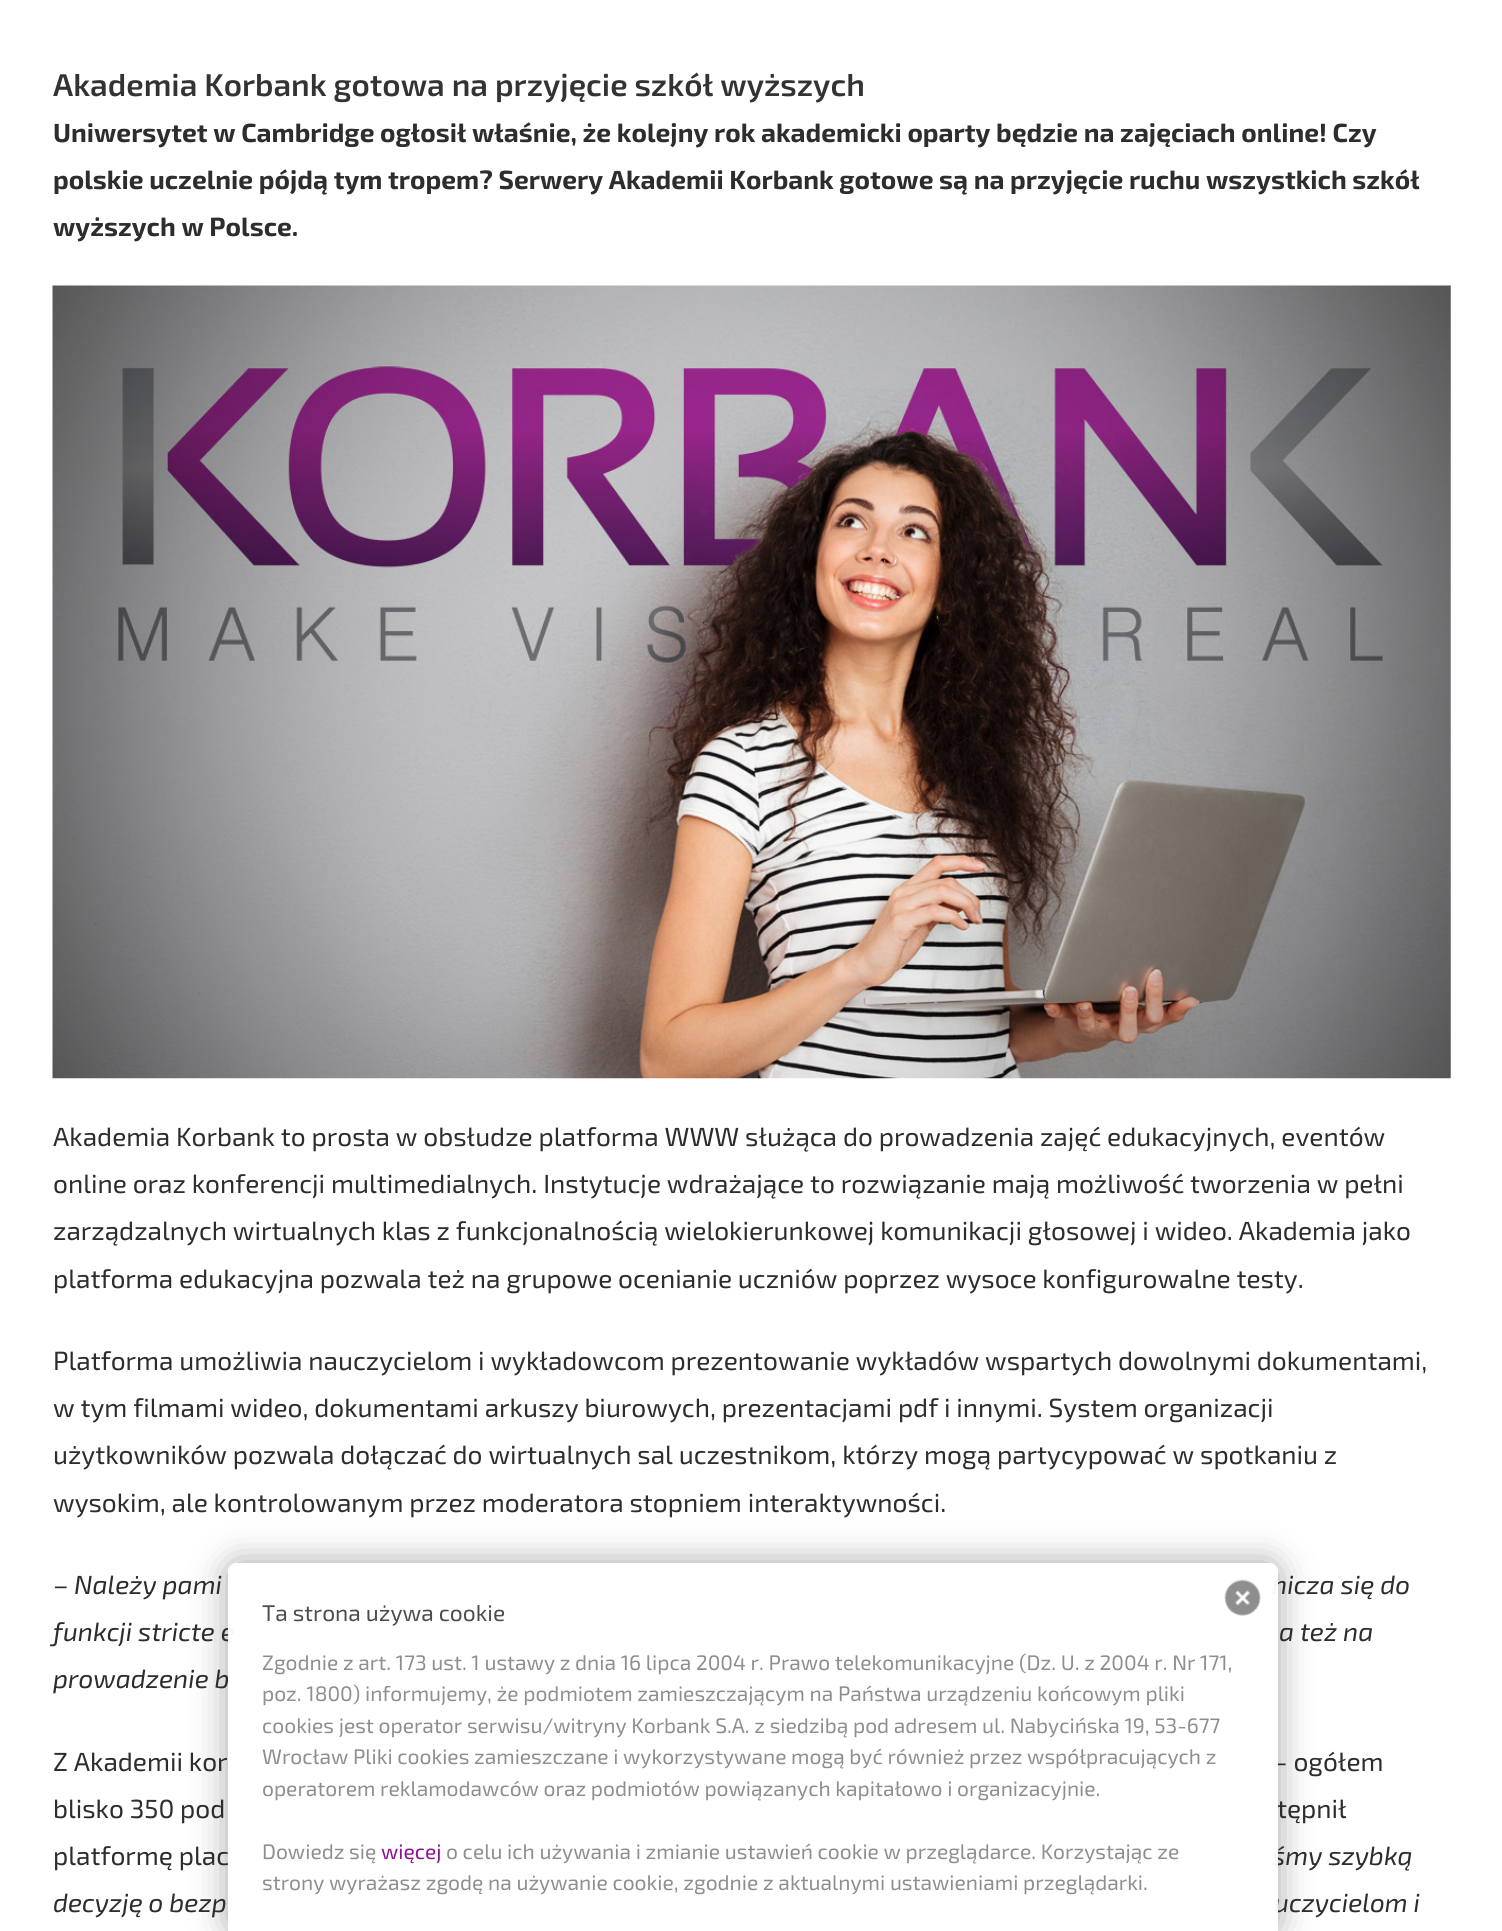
#include <cairo/cairo.h>
#include <math.h>
#include <stddef.h>


static void rounded_rect(cairo_t *cr, double x, double y, double w, double h, double r) {
  cairo_new_sub_path(cr);
  cairo_arc(cr, x + w - r, y + h - r, r, 0, M_PI / 2);
  cairo_arc(cr, x + r, y + h - r, r, M_PI / 2, M_PI);
  cairo_arc(cr, x + r, y + r, r, M_PI, 1.5 * M_PI);
  cairo_arc(cr, x + w - r, y + r, r, 1.5 * M_PI, 2 * M_PI);
  cairo_close_path(cr);
}

static void draw_shadow(cairo_t *cr, double x, double y, double w, double h, double r, double blur, double alpha) {
  cairo_push_group_with_content(cr, CAIRO_CONTENT_ALPHA);
  cairo_set_operator(cr, CAIRO_OPERATOR_SOURCE);
  for (int i = 15; i >= -15 && fmin(w, h) + blur * i / 3 > 0; i -= 2) {
    double e = blur * i / 6;
    cairo_set_source_rgba(cr, 0, 0, 0, alpha * erfc((i - 1) / 8.5) / 2);
    rounded_rect(cr, x - e, y - e, w + 2 * e, h + 2 * e, fmax(0, fmin(r + e + blur * .6, fmin(w, h) / 2 + e)));
    cairo_fill(cr);
  }
  cairo_pattern_t *soft = cairo_pop_group(cr);
  cairo_mask(cr, soft);
  cairo_pattern_destroy(soft);
}

static void draw_image(cairo_t *cr, const char *path, double x, double y, double w, double h) {
  cairo_surface_t *image = cairo_image_surface_create_from_png(path);
  cairo_save(cr);
  cairo_set_source_surface(cr, image, x, y);
  cairo_rectangle(cr, x, y, w, h);
  cairo_fill(cr);
  cairo_restore(cr);
  cairo_surface_destroy(image);
}

static void draw(cairo_t *cr) {
  cairo_set_source_rgb(cr, 1, 1, 1);
  cairo_paint(cr);
  draw_image(cr, "images/1.png", 52, 285, 1399, 794);
  cairo_save(cr);
  cairo_set_fill_rule(cr, CAIRO_FILL_RULE_EVEN_ODD);
  cairo_new_path(cr);
  cairo_move_to(cr, 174, 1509);
  cairo_line_to(cr, 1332, 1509);
  cairo_line_to(cr, 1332, 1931);
  cairo_line_to(cr, 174, 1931);
  cairo_close_path(cr);
  cairo_move_to(cr, 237, 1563);
  cairo_line_to(cr, 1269, 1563);
  cairo_curve_to(cr, 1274, 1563, 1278, 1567, 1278, 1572);
  cairo_line_to(cr, 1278, 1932);
  cairo_line_to(cr, 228, 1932);
  cairo_line_to(cr, 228, 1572);
  cairo_curve_to(cr, 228, 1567, 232, 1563, 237, 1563);
  cairo_close_path(cr);
  cairo_clip(cr);
  cairo_set_source_rgb(cr, 161 / 255.0, 161 / 255.0, 161 / 255.0);
  draw_shadow(cr, 228, 1563, 1050, 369, 9, 17.5, 0.95);
  cairo_restore(cr);
  cairo_select_font_face(cr, "Exo 2 SemiBold", CAIRO_FONT_SLANT_NORMAL, CAIRO_FONT_WEIGHT_NORMAL);
  cairo_set_font_size(cr, 31.5);
  cairo_set_source_rgb(cr, 51 / 255.0, 51 / 255.0, 51 / 255.0);
  cairo_move_to(cr, 53, 96);
  cairo_show_text(cr, "Akademia Korbank gotowa na przyjęcie szkół wyższych");
  cairo_select_font_face(cr, "Exo 2", CAIRO_FONT_SLANT_NORMAL, CAIRO_FONT_WEIGHT_BOLD);
  cairo_set_font_size(cr, 26.25);
  cairo_set_source_rgb(cr, 45 / 255.0, 45 / 255.0, 45 / 255.0);
  cairo_move_to(cr, 53, 142);
  cairo_show_text(cr, "Uniwersytet w Cambridge ogłosił właśnie, że kolejny rok akademicki oparty będzie na zajęciach online! Czy");
  cairo_move_to(cr, 53, 189);
  cairo_show_text(cr, "polskie uczelnie pójdą tym tropem? Serwery Akademii Korbank gotowe są na przyjęcie ruchu wszystkich szkół");
  cairo_move_to(cr, 53, 236);
  cairo_show_text(cr, "wyższych w Polsce.");
  cairo_select_font_face(cr, "Exo 2", CAIRO_FONT_SLANT_NORMAL, CAIRO_FONT_WEIGHT_NORMAL);
  cairo_move_to(cr, 53, 1146);
  cairo_show_text(cr, "Akademia Korbank to prosta w obsłudze platforma WWW służąca do prowadzenia zajęć edukacyjnych, eventów");
  cairo_move_to(cr, 53, 1193);
  cairo_show_text(cr, "online oraz konferencji multimedialnych. Instytucje wdrażające to rozwiązanie mają możliwość tworzenia w pełni");
  cairo_move_to(cr, 53, 1240);
  cairo_show_text(cr, "zarządzalnych wirtualnych klas z funkcjonalnością wielokierunkowej komunikacji głosowej i wideo. Akademia jako");
  cairo_move_to(cr, 53, 1288);
  cairo_show_text(cr, "platforma edukacyjna pozwala też na grupowe ocenianie uczniów poprzez wysoce konfigurowalne testy.");
  cairo_move_to(cr, 53, 1370);
  cairo_show_text(cr, "Platforma umożliwia nauczycielom i wykładowcom prezentowanie wykładów wspartych dowolnymi dokumentami,");
  cairo_move_to(cr, 53, 1417);
  cairo_show_text(cr, "w tym filmami wideo, dokumentami arkuszy biurowych, prezentacjami pdf i innymi. System organizacji");
  cairo_move_to(cr, 53, 1464);
  cairo_show_text(cr, "użytkowników pozwala dołączać do wirtualnych sal uczestnikom, którzy mogą partycypować w spotkaniu z");
  cairo_move_to(cr, 53, 1512);
  cairo_show_text(cr, "wysokim, ale kontrolowanym przez moderatora stopniem interaktywności.");
  cairo_move_to(cr, 53, 1594);
  cairo_show_text(cr, "–");
  cairo_select_font_face(cr, "Exo 2", CAIRO_FONT_SLANT_ITALIC, CAIRO_FONT_WEIGHT_NORMAL);
  cairo_move_to(cr, 74, 1594);
  cairo_show_text(cr, "Należy pami");
  cairo_move_to(cr, 1272, 1594);
  cairo_show_text(cr, "nicza się do");
  cairo_move_to(cr, 53, 1641);
  cairo_show_text(cr, "funkcji stricte e");
  cairo_move_to(cr, 1279, 1641);
  cairo_show_text(cr, "a też na");
  cairo_move_to(cr, 53, 1688);
  cairo_show_text(cr, "prowadzenie b");
  cairo_select_font_face(cr, "Exo 2", CAIRO_FONT_SLANT_NORMAL, CAIRO_FONT_WEIGHT_NORMAL);
  cairo_move_to(cr, 53, 1771);
  cairo_show_text(cr, "Z Akademii kor");
  cairo_move_to(cr, 1272, 1771);
  cairo_show_text(cr, "– ogółem");
  cairo_move_to(cr, 53, 1818);
  cairo_show_text(cr, "blisko 350 pod");
  cairo_move_to(cr, 1277, 1818);
  cairo_show_text(cr, "tępnił");
  cairo_move_to(cr, 53, 1865);
  cairo_show_text(cr, "platformę plac");
  cairo_select_font_face(cr, "Exo 2", CAIRO_FONT_SLANT_ITALIC, CAIRO_FONT_WEIGHT_NORMAL);
  cairo_move_to(cr, 1272, 1865);
  cairo_show_text(cr, "śmy szybką");
  cairo_move_to(cr, 53, 1912);
  cairo_show_text(cr, "decyzję o bezp");
  cairo_move_to(cr, 1274, 1912);
  cairo_show_text(cr, "uczycielom i");
  cairo_set_source_rgba(cr, 1, 1, 1, 0.95);
  cairo_new_path(cr);
  cairo_move_to(cr, 237, 1563);
  cairo_line_to(cr, 1269, 1563);
  cairo_curve_to(cr, 1274, 1563, 1278, 1567, 1278, 1572);
  cairo_line_to(cr, 1278, 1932);
  cairo_line_to(cr, 228, 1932);
  cairo_line_to(cr, 228, 1572);
  cairo_curve_to(cr, 228, 1567, 232, 1563, 237, 1563);
  cairo_close_path(cr);
  cairo_fill(cr);
  cairo_select_font_face(cr, "Exo 2", CAIRO_FONT_SLANT_NORMAL, CAIRO_FONT_WEIGHT_NORMAL);
  cairo_set_font_size(cr, 22.75);
  cairo_set_source_rgb(cr, 77 / 255.0, 77 / 255.0, 77 / 255.0);
  cairo_move_to(cr, 262, 1621);
  cairo_show_text(cr, "Ta strona używa cookie");
  draw_image(cr, "images/2.png", 1224, 1579, 37, 37);
  cairo_set_font_size(cr, 21);
  cairo_set_source_rgb(cr, 142 / 255.0, 142 / 255.0, 142 / 255.0);
  cairo_move_to(cr, 262, 1670);
  cairo_show_text(cr, "Zgodnie z art. 173 ust. 1 ustawy z dnia 16 lipca 2004 r. Prawo telekomunikacyjne (Dz. U. z 2004 r. Nr 171,");
  cairo_move_to(cr, 262, 1701);
  cairo_show_text(cr, "poz. 1800) informujemy, że podmiotem zamieszczającym na Państwa urządzeniu końcowym pliki");
  cairo_move_to(cr, 262, 1733);
  cairo_show_text(cr, "cookies jest operator serwisu/witryny Korbank S.A. z siedzibą pod adresem ul. Nabycińska 19, 53-677");
  cairo_move_to(cr, 262, 1764);
  cairo_show_text(cr, "Wrocław Pliki cookies zamieszczane i wykorzystywane mogą być również przez współpracujących z");
  cairo_move_to(cr, 262, 1796);
  cairo_show_text(cr, "operatorem reklamodawców oraz podmiotów powiązanych kapitałowo i organizacyjnie.");
  cairo_move_to(cr, 262, 1859);
  cairo_show_text(cr, "Dowiedz się");
  cairo_set_source_rgb(cr, 141 / 255.0, 17 / 255.0, 148 / 255.0);
  cairo_move_to(cr, 381, 1859);
  cairo_show_text(cr, "więcej");
  cairo_set_source_rgb(cr, 142 / 255.0, 142 / 255.0, 142 / 255.0);
  cairo_move_to(cr, 446, 1859);
  cairo_show_text(cr, "o celu ich używania i zmianie ustawień cookie w przeglądarce. Korzystając ze");
  cairo_move_to(cr, 262, 1890);
  cairo_show_text(cr, "strony wyrażasz zgodę na używanie cookie, zgodnie z aktualnymi ustawieniami przeglądarki.");
}

int main(void) {
  cairo_surface_t *surface = cairo_image_surface_create(CAIRO_FORMAT_RGB24, 1502, 1931);
  cairo_t *cr = cairo_create(surface);
  cairo_font_options_t *options = cairo_font_options_create();
  cairo_font_options_set_hint_metrics(options, CAIRO_HINT_METRICS_OFF);
  cairo_font_options_set_hint_style(options, CAIRO_HINT_STYLE_NONE);
  cairo_set_font_options(cr, options);
  cairo_set_miter_limit(cr, 4);
  draw(cr);
  cairo_surface_write_to_png(surface, "out.png");
  cairo_font_options_destroy(options);
  cairo_destroy(cr);
  cairo_surface_destroy(surface);
  return 0;
}
